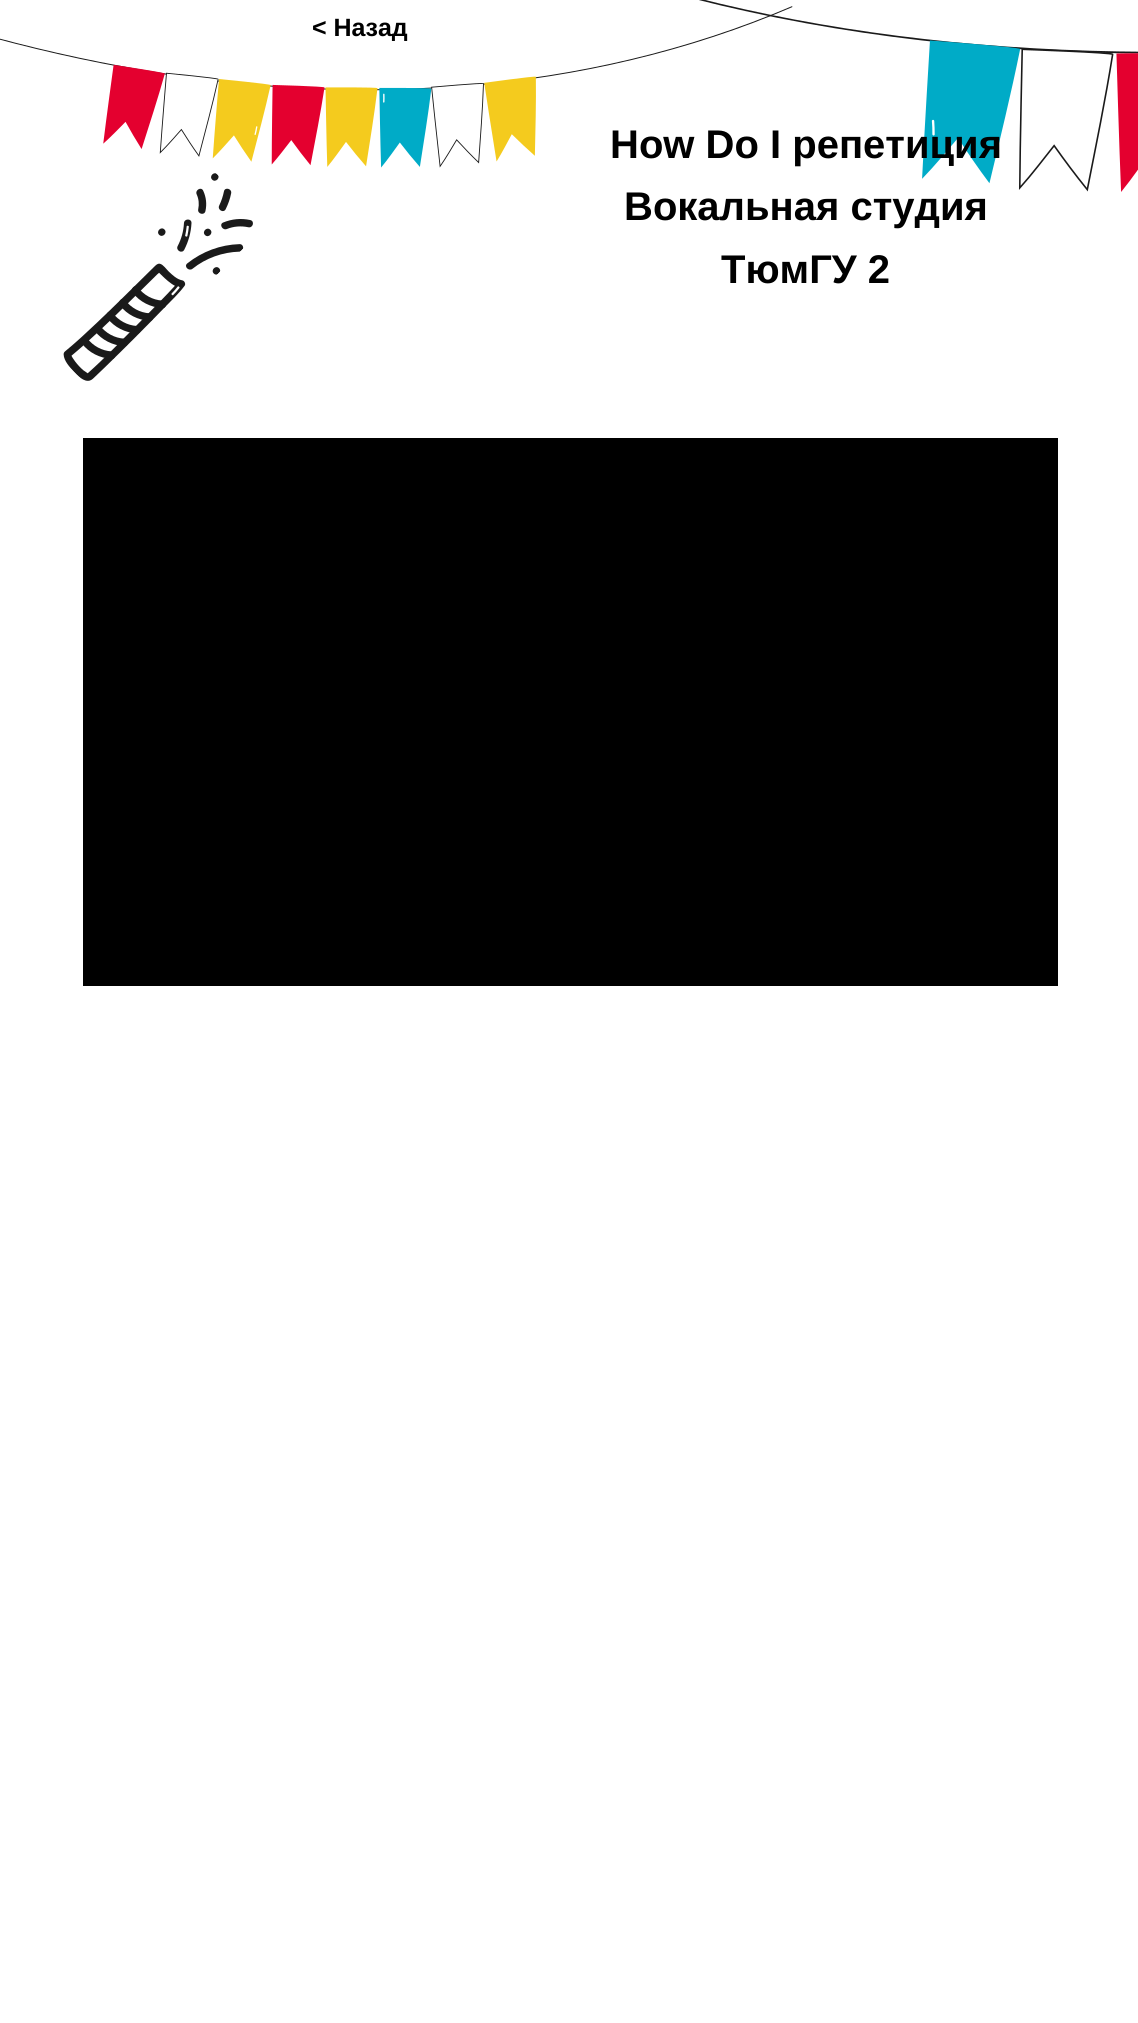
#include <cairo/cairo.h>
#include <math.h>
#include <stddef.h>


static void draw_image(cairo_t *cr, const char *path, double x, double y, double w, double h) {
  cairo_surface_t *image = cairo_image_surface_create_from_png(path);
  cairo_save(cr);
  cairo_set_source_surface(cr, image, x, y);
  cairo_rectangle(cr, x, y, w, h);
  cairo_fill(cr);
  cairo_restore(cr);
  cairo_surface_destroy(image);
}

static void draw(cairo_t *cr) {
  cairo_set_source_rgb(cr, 1, 1, 1);
  cairo_paint(cr);
  draw_image(cr, "images/1.png", 0, 6, 793, 162);
  draw_image(cr, "images/2.png", 699, 0, 439, 192);
  draw_image(cr, "images/3.png", 63, 173, 190, 208);
  cairo_set_source_rgb(cr, 0, 0, 0);
  cairo_rectangle(cr, 83, 438, 975, 548);
  cairo_fill(cr);
  cairo_select_font_face(cr, "Liberation Sans", CAIRO_FONT_SLANT_NORMAL, CAIRO_FONT_WEIGHT_BOLD);
  cairo_set_font_size(cr, 25);
  cairo_move_to(cr, 312, 36);
  cairo_show_text(cr, "< Назад");
  cairo_set_font_size(cr, 40);
  cairo_move_to(cr, 610, 158);
  cairo_show_text(cr, "How Do I репетиция");
  cairo_move_to(cr, 624, 220);
  cairo_show_text(cr, "Вокальная студия");
  cairo_move_to(cr, 721, 283);
  cairo_show_text(cr, "ТюмГУ 2");
}

int main(void) {
  cairo_surface_t *surface = cairo_image_surface_create(CAIRO_FORMAT_RGB24, 1138, 2023);
  cairo_t *cr = cairo_create(surface);
  cairo_font_options_t *options = cairo_font_options_create();
  cairo_font_options_set_hint_metrics(options, CAIRO_HINT_METRICS_OFF);
  cairo_font_options_set_hint_style(options, CAIRO_HINT_STYLE_NONE);
  cairo_set_font_options(cr, options);
  cairo_set_miter_limit(cr, 4);
  draw(cr);
  cairo_surface_write_to_png(surface, "out.png");
  cairo_font_options_destroy(options);
  cairo_destroy(cr);
  cairo_surface_destroy(surface);
  return 0;
}
